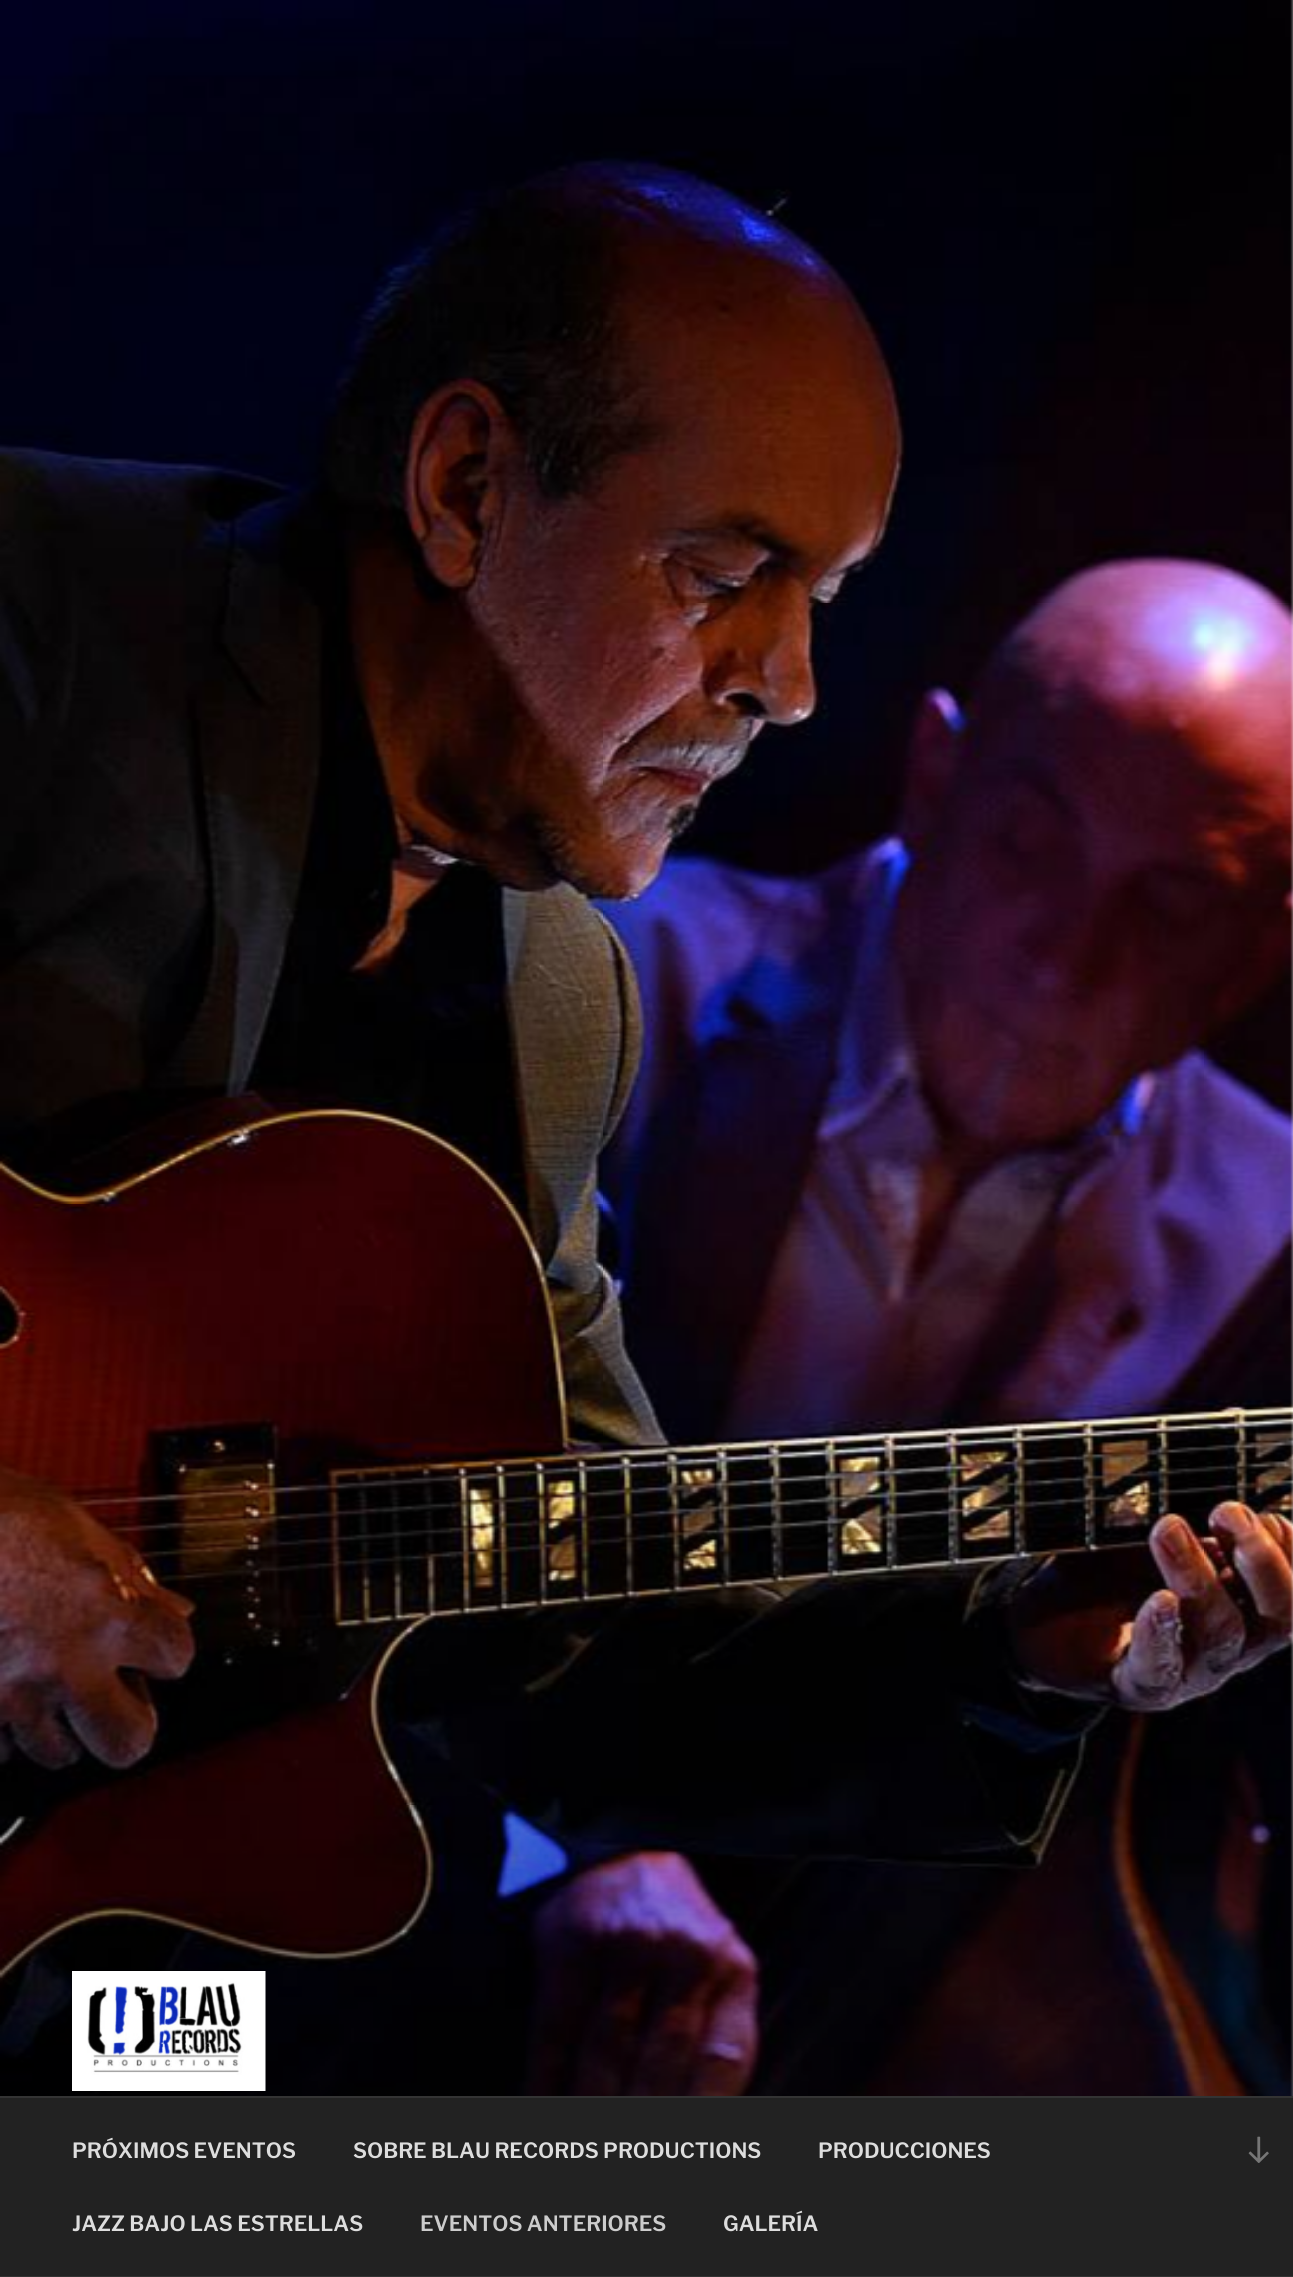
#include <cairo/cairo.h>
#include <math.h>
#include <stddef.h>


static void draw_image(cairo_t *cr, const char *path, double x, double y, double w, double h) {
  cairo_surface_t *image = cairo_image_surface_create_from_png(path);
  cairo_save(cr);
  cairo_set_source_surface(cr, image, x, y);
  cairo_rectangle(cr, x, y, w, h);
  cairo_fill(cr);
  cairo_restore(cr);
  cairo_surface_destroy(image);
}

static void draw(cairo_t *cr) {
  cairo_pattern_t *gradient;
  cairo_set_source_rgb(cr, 1, 1, 1);
  cairo_paint(cr);
  draw_image(cr, "images/1.png", 0, 0, 1293, 2096);
  gradient = cairo_pattern_create_linear(646, 1526, 647, 2277);
  cairo_pattern_add_color_stop_rgba(gradient, 0, 0, 0, 0, 0);
  cairo_pattern_add_color_stop_rgba(gradient, 0.75, 0, 0, 0, 0.3);
  cairo_pattern_add_color_stop_rgba(gradient, 1, 0, 0, 0, 0.3);
  cairo_set_source(cr, gradient);
  cairo_pattern_destroy(gradient);
  cairo_rectangle(cr, 0, 1566, 1293, 530);
  cairo_fill(cr);
  draw_image(cr, "images/2.png", 72, 1971, 194, 120);
  cairo_set_source_rgb(cr, 34 / 255.0, 34 / 255.0, 34 / 255.0);
  cairo_rectangle(cr, 0, 2098, 1293, 178);
  cairo_fill(cr);
  cairo_set_source_rgb(cr, 51 / 255.0, 51 / 255.0, 51 / 255.0);
  cairo_rectangle(cr, 0, 2096, 1293, 2);
  cairo_fill(cr);
  cairo_rectangle(cr, 0, 2276, 1293, 1);
  cairo_fill(cr);
  draw_image(cr, "images/3.png", 1248, 2136, 21, 27);
  cairo_select_font_face(cr, "Libre Franklin SemiBold", CAIRO_FONT_SLANT_NORMAL, CAIRO_FONT_WEIGHT_NORMAL);
  cairo_set_font_size(cr, 21);
  cairo_set_source_rgb(cr, 221 / 255.0, 221 / 255.0, 221 / 255.0);
  cairo_move_to(cr, 72, 2158);
  cairo_show_text(cr, "PRÓXIMOS EVENTOS");
  cairo_move_to(cr, 353, 2158);
  cairo_show_text(cr, "SOBRE BLAU RECORDS PRODUCTIONS");
  cairo_move_to(cr, 818, 2158);
  cairo_show_text(cr, "PRODUCCIONES");
  cairo_move_to(cr, 72, 2231);
  cairo_show_text(cr, "JAZZ BAJO LAS ESTRELLAS");
  cairo_set_source_rgb(cr, 204 / 255.0, 204 / 255.0, 204 / 255.0);
  cairo_move_to(cr, 420, 2231);
  cairo_show_text(cr, "EVENTOS ANTERIORES");
  cairo_set_source_rgb(cr, 221 / 255.0, 221 / 255.0, 221 / 255.0);
  cairo_move_to(cr, 723, 2231);
  cairo_show_text(cr, "GALERÍA");
}

int main(void) {
  cairo_surface_t *surface = cairo_image_surface_create(CAIRO_FORMAT_RGB24, 1293, 2277);
  cairo_t *cr = cairo_create(surface);
  cairo_font_options_t *options = cairo_font_options_create();
  cairo_font_options_set_hint_metrics(options, CAIRO_HINT_METRICS_OFF);
  cairo_font_options_set_hint_style(options, CAIRO_HINT_STYLE_NONE);
  cairo_set_font_options(cr, options);
  cairo_set_miter_limit(cr, 4);
  draw(cr);
  cairo_surface_write_to_png(surface, "out.png");
  cairo_font_options_destroy(options);
  cairo_destroy(cr);
  cairo_surface_destroy(surface);
  return 0;
}
